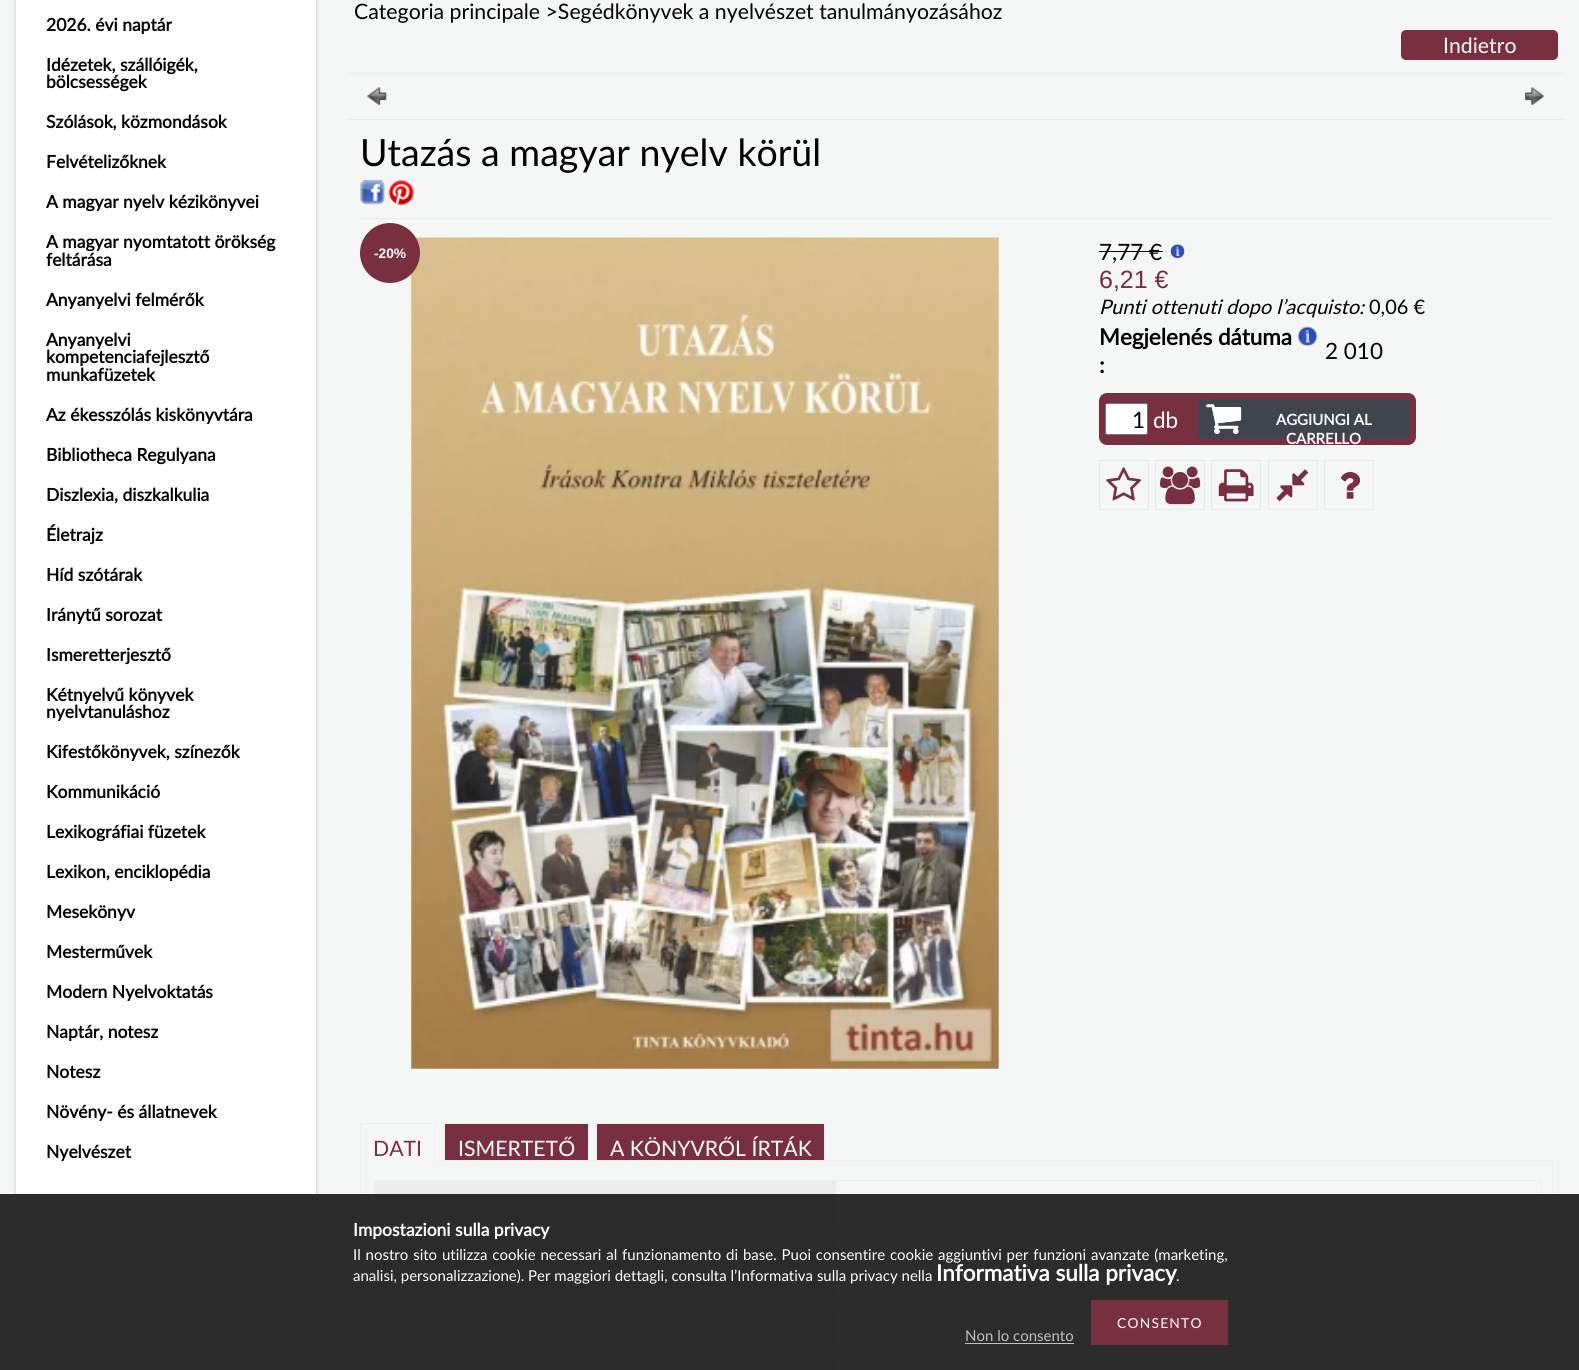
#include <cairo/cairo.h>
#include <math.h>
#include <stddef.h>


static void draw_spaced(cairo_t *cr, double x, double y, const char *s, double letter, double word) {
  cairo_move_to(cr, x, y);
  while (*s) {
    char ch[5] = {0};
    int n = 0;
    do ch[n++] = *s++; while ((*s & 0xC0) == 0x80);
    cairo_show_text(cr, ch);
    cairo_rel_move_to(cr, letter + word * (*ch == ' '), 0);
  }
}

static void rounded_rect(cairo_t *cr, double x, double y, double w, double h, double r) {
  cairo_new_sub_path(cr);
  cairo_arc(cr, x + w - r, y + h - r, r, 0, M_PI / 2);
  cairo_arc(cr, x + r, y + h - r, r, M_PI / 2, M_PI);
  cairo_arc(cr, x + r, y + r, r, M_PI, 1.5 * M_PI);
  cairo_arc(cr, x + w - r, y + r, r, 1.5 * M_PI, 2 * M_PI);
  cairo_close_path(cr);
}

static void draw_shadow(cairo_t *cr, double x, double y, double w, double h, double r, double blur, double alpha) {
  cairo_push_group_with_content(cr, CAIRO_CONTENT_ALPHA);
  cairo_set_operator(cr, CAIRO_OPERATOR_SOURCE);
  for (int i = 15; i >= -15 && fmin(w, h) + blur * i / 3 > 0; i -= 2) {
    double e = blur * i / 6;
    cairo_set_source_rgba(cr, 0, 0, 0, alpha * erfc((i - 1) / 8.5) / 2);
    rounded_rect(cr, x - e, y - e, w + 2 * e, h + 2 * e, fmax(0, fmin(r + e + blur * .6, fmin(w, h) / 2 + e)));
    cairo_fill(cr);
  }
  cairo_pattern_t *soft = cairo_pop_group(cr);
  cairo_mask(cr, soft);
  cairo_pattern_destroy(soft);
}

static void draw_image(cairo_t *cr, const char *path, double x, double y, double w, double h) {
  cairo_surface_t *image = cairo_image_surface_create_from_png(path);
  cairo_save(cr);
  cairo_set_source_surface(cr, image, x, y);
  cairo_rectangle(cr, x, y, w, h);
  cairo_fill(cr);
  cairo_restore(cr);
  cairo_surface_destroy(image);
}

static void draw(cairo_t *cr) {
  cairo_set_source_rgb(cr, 245 / 255.0, 246 / 255.0, 246 / 255.0);
  cairo_paint(cr);
  cairo_set_source_rgb(cr, 0, 0, 0);
  draw_shadow(cr, 16, -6, 300, 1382, 0, 2, 0.2);
  cairo_set_source_rgb(cr, 1, 1, 1);
  cairo_rectangle(cr, 16, 0, 300, 1370);
  cairo_fill(cr);
  cairo_set_source_rgb(cr, 120 / 255.0, 47 / 255.0, 64 / 255.0);
  rounded_rect(cr, 1401, 30, 157, 30, 5);
  cairo_fill(cr);
  cairo_set_source_rgb(cr, 236 / 255.0, 234 / 255.0, 234 / 255.0);
  cairo_rectangle(cr, 348, 73, 1216, 1);
  cairo_fill(cr);
  draw_image(cr, "images/1.png", 367, 87, 20, 19);
  draw_image(cr, "images/2.png", 1525, 87, 19, 19);
  cairo_rectangle(cr, 348, 119, 1216, 1);
  cairo_fill(cr);
  cairo_rectangle(cr, 360, 218, 1193, 1);
  cairo_fill(cr);
  draw_image(cr, "images/3.png", 360, 180, 25, 25);
  draw_image(cr, "images/4.png", 388, 180, 26, 25);
  draw_image(cr, "images/5.png", 411, 237, 588, 832);
  cairo_set_source_rgb(cr, 120 / 255.0, 47 / 255.0, 64 / 255.0);
  cairo_arc(cr, 390, 253, 30, 0, 2 * M_PI);
  cairo_fill(cr);
  cairo_set_source_rgb(cr, 0, 0, 0);
  cairo_rectangle(cr, 1099, 251, 64, 1);
  cairo_fill(cr);
  draw_image(cr, "images/6.png", 1170, 243, 15, 16);
  draw_image(cr, "images/7.png", 1297, 326, 21, 21);
  cairo_set_source_rgb(cr, 120 / 255.0, 47 / 255.0, 64 / 255.0);
  rounded_rect(cr, 1099, 393, 317, 52, 8);
  cairo_fill(cr);
  cairo_set_source_rgb(cr, 1, 1, 1);
  rounded_rect(cr, 1105.5, 403.5, 42, 31, 2);
  cairo_fill_preserve(cr);
  cairo_set_source_rgb(cr, 118 / 255.0, 118 / 255.0, 118 / 255.0);
  cairo_set_line_width(cr, 1);
  cairo_stroke(cr);
  cairo_set_source_rgb(cr, 62 / 255.0, 69 / 255.0, 76 / 255.0);
  rounded_rect(cr, 1198, 399, 212, 40, 6);
  cairo_fill(cr);
  draw_image(cr, "images/8.png", 1206, 404, 36, 30);
  draw_image(cr, "images/9.png", 1206, 404, 36, 30);
  cairo_rectangle(cr, 1099.5, 460.5, 49, 49);
  cairo_set_source_rgb(cr, 234 / 255.0, 234 / 255.0, 234 / 255.0);
  cairo_stroke(cr);
  draw_image(cr, "images/10.png", 1106, 467, 35, 34);
  cairo_rectangle(cr, 1155.5, 460.5, 49, 49);
  cairo_stroke(cr);
  draw_image(cr, "images/11.png", 1160, 466, 41, 39);
  cairo_rectangle(cr, 1211.5, 460.5, 49, 49);
  cairo_stroke(cr);
  draw_image(cr, "images/12.png", 1218, 469, 36, 33);
  cairo_rectangle(cr, 1268.5, 460.5, 49, 49);
  cairo_stroke(cr);
  draw_image(cr, "images/13.png", 1276, 469, 33, 33);
  cairo_rectangle(cr, 1324.5, 460.5, 49, 49);
  cairo_stroke(cr);
  draw_image(cr, "images/14.png", 1340, 472, 21, 27);
  cairo_set_source_rgb(cr, 239 / 255.0, 239 / 255.0, 239 / 255.0);
  cairo_rectangle(cr, 360, 1123, 76, 1);
  cairo_fill(cr);
  cairo_rectangle(cr, 360.5, 1160.5, 1192, 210);
  cairo_stroke(cr);
  cairo_rectangle(cr, 435, 1123, 1, 38);
  cairo_fill(cr);
  cairo_set_source_rgb(cr, 245 / 255.0, 245 / 255.0, 245 / 255.0);
  cairo_rectangle(cr, 360, 1160, 76, 1);
  cairo_fill(cr);
  cairo_set_source_rgb(cr, 239 / 255.0, 239 / 255.0, 239 / 255.0);
  cairo_rectangle(cr, 360, 1123, 1, 38);
  cairo_fill(cr);
  cairo_set_source_rgb(cr, 120 / 255.0, 47 / 255.0, 64 / 255.0);
  cairo_rectangle(cr, 444.5, 1123.5, 144, 37);
  cairo_fill_preserve(cr);
  cairo_set_source_rgb(cr, 239 / 255.0, 239 / 255.0, 239 / 255.0);
  cairo_stroke(cr);
  cairo_set_source_rgb(cr, 120 / 255.0, 47 / 255.0, 64 / 255.0);
  cairo_rectangle(cr, 596.5, 1123.5, 228, 37);
  cairo_fill_preserve(cr);
  cairo_set_source_rgb(cr, 239 / 255.0, 239 / 255.0, 239 / 255.0);
  cairo_stroke(cr);
  cairo_rectangle(cr, 374.5, 1180.5, 1166, 44);
  cairo_stroke(cr);
  cairo_set_source_rgb(cr, 237 / 255.0, 237 / 255.0, 237 / 255.0);
  cairo_rectangle(cr, 375, 1181, 461, 43);
  cairo_fill(cr);
  cairo_rectangle(cr, 374.5, 1231.5, 1166, 71);
  cairo_set_source_rgb(cr, 239 / 255.0, 239 / 255.0, 239 / 255.0);
  cairo_stroke(cr);
  cairo_set_source_rgb(cr, 237 / 255.0, 237 / 255.0, 237 / 255.0);
  cairo_rectangle(cr, 375, 1233, 461, 68);
  cairo_fill(cr);
  cairo_rectangle(cr, 374.5, 1309.5, 1166, 43);
  cairo_set_source_rgb(cr, 239 / 255.0, 239 / 255.0, 239 / 255.0);
  cairo_stroke(cr);
  cairo_set_source_rgb(cr, 237 / 255.0, 237 / 255.0, 237 / 255.0);
  cairo_rectangle(cr, 375, 1310, 461, 41);
  cairo_fill(cr);
  cairo_rectangle(cr, 374.5, 1359.5, 1166, 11);
  cairo_set_source_rgb(cr, 239 / 255.0, 239 / 255.0, 239 / 255.0);
  cairo_stroke(cr);
  cairo_set_source_rgb(cr, 237 / 255.0, 237 / 255.0, 237 / 255.0);
  cairo_rectangle(cr, 375, 1360, 461, 10);
  cairo_fill(cr);
  cairo_set_source_rgba(cr, 34 / 255.0, 34 / 255.0, 34 / 255.0, 0.95);
  cairo_rectangle(cr, 0, 1194, 1579, 176);
  cairo_fill(cr);
  cairo_set_source_rgb(cr, 120 / 255.0, 47 / 255.0, 64 / 255.0);
  cairo_rectangle(cr, 1091, 1300, 137, 45);
  cairo_fill(cr);
  cairo_set_source_rgb(cr, 192 / 255.0, 192 / 255.0, 192 / 255.0);
  cairo_rectangle(cr, 965, 1343, 109, 1);
  cairo_fill(cr);
  cairo_select_font_face(cr, "Lato", CAIRO_FONT_SLANT_NORMAL, CAIRO_FONT_WEIGHT_BOLD);
  cairo_set_font_size(cr, 17.5);
  cairo_set_source_rgb(cr, 0, 0, 0);
  cairo_move_to(cr, 46, 31);
  cairo_show_text(cr, "2026. évi naptár");
  cairo_move_to(cr, 46, 71);
  cairo_show_text(cr, "Idézetek, szállóigék,");
  cairo_move_to(cr, 46, 88);
  cairo_show_text(cr, "bölcsességek");
  cairo_move_to(cr, 46, 128);
  cairo_show_text(cr, "Szólások, közmondások");
  cairo_move_to(cr, 46, 168);
  cairo_show_text(cr, "Felvételizőknek");
  cairo_move_to(cr, 46, 208);
  cairo_show_text(cr, "A magyar nyelv kézikönyvei");
  cairo_move_to(cr, 46, 248);
  cairo_show_text(cr, "A magyar nyomtatott örökség");
  cairo_move_to(cr, 46, 266);
  cairo_show_text(cr, "feltárása");
  cairo_move_to(cr, 46, 306);
  cairo_show_text(cr, "Anyanyelvi felmérők");
  cairo_move_to(cr, 46, 346);
  cairo_show_text(cr, "Anyanyelvi");
  cairo_move_to(cr, 46, 363);
  cairo_show_text(cr, "kompetenciafejlesztő");
  cairo_move_to(cr, 46, 381);
  cairo_show_text(cr, "munkafüzetek");
  cairo_move_to(cr, 46, 421);
  cairo_show_text(cr, "Az ékesszólás kiskönyvtára");
  cairo_move_to(cr, 46, 461);
  cairo_show_text(cr, "Bibliotheca Regulyana");
  cairo_move_to(cr, 46, 501);
  cairo_show_text(cr, "Diszlexia, diszkalkulia");
  cairo_move_to(cr, 46, 541);
  cairo_show_text(cr, "Életrajz");
  cairo_move_to(cr, 46, 581);
  cairo_show_text(cr, "Híd szótárak");
  cairo_move_to(cr, 46, 621);
  cairo_show_text(cr, "Iránytű sorozat");
  cairo_move_to(cr, 46, 661);
  cairo_show_text(cr, "Ismeretterjesztő");
  cairo_move_to(cr, 46, 701);
  cairo_show_text(cr, "Kétnyelvű könyvek");
  cairo_move_to(cr, 46, 718);
  cairo_show_text(cr, "nyelvtanuláshoz");
  cairo_move_to(cr, 46, 758);
  cairo_show_text(cr, "Kifestőkönyvek, színezők");
  cairo_move_to(cr, 46, 798);
  cairo_show_text(cr, "Kommunikáció");
  cairo_move_to(cr, 46, 838);
  cairo_show_text(cr, "Lexikográfiai füzetek");
  cairo_move_to(cr, 46, 878);
  cairo_show_text(cr, "Lexikon, enciklopédia");
  cairo_move_to(cr, 46, 918);
  cairo_show_text(cr, "Mesekönyv");
  cairo_move_to(cr, 46, 958);
  cairo_show_text(cr, "Mesterművek");
  cairo_move_to(cr, 46, 998);
  cairo_show_text(cr, "Modern Nyelvoktatás");
  cairo_move_to(cr, 46, 1038);
  cairo_show_text(cr, "Naptár, notesz");
  cairo_move_to(cr, 46, 1078);
  cairo_show_text(cr, "Notesz");
  cairo_move_to(cr, 46, 1118);
  cairo_show_text(cr, "Növény- és állatnevek");
  cairo_move_to(cr, 46, 1158);
  cairo_show_text(cr, "Nyelvészet");
  cairo_select_font_face(cr, "Lato", CAIRO_FONT_SLANT_NORMAL, CAIRO_FONT_WEIGHT_NORMAL);
  cairo_set_font_size(cr, 21.25);
  cairo_move_to(cr, 354, 19);
  cairo_show_text(cr, "Categoria principale >Segédkönyvek a nyelvészet tanulmányozásához");
  cairo_set_source_rgb(cr, 1, 1, 1);
  cairo_move_to(cr, 1443, 53);
  cairo_show_text(cr, "Indietro");
  cairo_set_font_size(cr, 37.5);
  cairo_set_source_rgb(cr, 0, 0, 0);
  cairo_move_to(cr, 360, 166);
  cairo_show_text(cr, "Utazás a magyar nyelv körül");
  cairo_select_font_face(cr, "Liberation Sans", CAIRO_FONT_SLANT_NORMAL, CAIRO_FONT_WEIGHT_BOLD);
  cairo_set_font_size(cr, 13.75);
  cairo_set_source_rgb(cr, 1, 1, 1);
  cairo_move_to(cr, 374, 258);
  cairo_show_text(cr, "-20%");
  cairo_select_font_face(cr, "Lato", CAIRO_FONT_SLANT_NORMAL, CAIRO_FONT_WEIGHT_NORMAL);
  cairo_set_font_size(cr, 22.5);
  cairo_set_source_rgb(cr, 0, 0, 0);
  cairo_move_to(cr, 1099, 260);
  cairo_show_text(cr, "7,77 €");
  cairo_select_font_face(cr, "Liberation Sans", CAIRO_FONT_SLANT_NORMAL, CAIRO_FONT_WEIGHT_NORMAL);
  cairo_set_font_size(cr, 25);
  cairo_set_source_rgb(cr, 120 / 255.0, 47 / 255.0, 64 / 255.0);
  cairo_move_to(cr, 1099, 288);
  cairo_show_text(cr, "6,21 €");
  cairo_select_font_face(cr, "Lato", CAIRO_FONT_SLANT_ITALIC, CAIRO_FONT_WEIGHT_NORMAL);
  cairo_set_font_size(cr, 20);
  cairo_set_source_rgb(cr, 0, 0, 0);
  cairo_move_to(cr, 1099, 314);
  cairo_show_text(cr, "Punti ottenuti dopo l’acquisto:");
  cairo_select_font_face(cr, "Lato", CAIRO_FONT_SLANT_NORMAL, CAIRO_FONT_WEIGHT_NORMAL);
  cairo_move_to(cr, 1369, 314);
  cairo_show_text(cr, "0,06 €");
  cairo_select_font_face(cr, "Lato", CAIRO_FONT_SLANT_NORMAL, CAIRO_FONT_WEIGHT_BOLD);
  cairo_set_font_size(cr, 22.5);
  cairo_move_to(cr, 1099, 345);
  cairo_show_text(cr, "Megjelenés dátuma");
  cairo_move_to(cr, 1099, 373);
  cairo_show_text(cr, ":");
  cairo_select_font_face(cr, "Lato", CAIRO_FONT_SLANT_NORMAL, CAIRO_FONT_WEIGHT_NORMAL);
  cairo_move_to(cr, 1325, 359);
  cairo_show_text(cr, "2 010");
  cairo_move_to(cr, 1132, 428);
  cairo_show_text(cr, "1");
  cairo_set_source_rgb(cr, 1, 1, 1);
  cairo_move_to(cr, 1153, 428);
  cairo_show_text(cr, "db");
  cairo_select_font_face(cr, "Lato", CAIRO_FONT_SLANT_NORMAL, CAIRO_FONT_WEIGHT_BOLD);
  cairo_set_font_size(cr, 15);
  cairo_move_to(cr, 1276, 425);
  cairo_show_text(cr, "AGGIUNGI AL");
  cairo_move_to(cr, 1286, 444);
  cairo_show_text(cr, "CARRELLO");
  cairo_select_font_face(cr, "Lato", CAIRO_FONT_SLANT_NORMAL, CAIRO_FONT_WEIGHT_NORMAL);
  cairo_set_font_size(cr, 21.25);
  cairo_set_source_rgb(cr, 120 / 255.0, 47 / 255.0, 64 / 255.0);
  cairo_move_to(cr, 373, 1156);
  cairo_show_text(cr, "DATI");
  cairo_set_source_rgb(cr, 1, 1, 1);
  cairo_move_to(cr, 458, 1156);
  cairo_show_text(cr, "ISMERTETŐ");
  cairo_move_to(cr, 610, 1156);
  cairo_show_text(cr, "A KÖNYVRŐL ÍRTÁK");
  cairo_select_font_face(cr, "Lato", CAIRO_FONT_SLANT_NORMAL, CAIRO_FONT_WEIGHT_BOLD);
  cairo_set_font_size(cr, 17.5);
  cairo_move_to(cr, 353, 1236);
  cairo_show_text(cr, "Impostazioni sulla privacy");
  cairo_select_font_face(cr, "Lato", CAIRO_FONT_SLANT_NORMAL, CAIRO_FONT_WEIGHT_NORMAL);
  cairo_set_font_size(cr, 15);
  draw_spaced(cr, 353, 1260, "Il nostro sito utilizza cookie necessari al funzionamento di base. Puoi consentire cookie aggiuntivi per funzioni avanzate (marketing,", 0, 1);
  cairo_move_to(cr, 353, 1281);
  cairo_show_text(cr, "analisi, personalizzazione). Per maggiori dettagli, consulta l’Informativa sulla privacy nella");
  cairo_select_font_face(cr, "Lato", CAIRO_FONT_SLANT_NORMAL, CAIRO_FONT_WEIGHT_BOLD);
  cairo_set_font_size(cr, 22.5);
  cairo_move_to(cr, 936, 1281);
  cairo_show_text(cr, "Informativa sulla privacy");
  cairo_select_font_face(cr, "Lato", CAIRO_FONT_SLANT_NORMAL, CAIRO_FONT_WEIGHT_NORMAL);
  cairo_set_font_size(cr, 15);
  cairo_move_to(cr, 1176, 1281);
  cairo_show_text(cr, ".");
  cairo_set_font_size(cr, 13.75);
  draw_spaced(cr, 1117, 1328, "CONSENTO", 1.25, 0);
  cairo_set_font_size(cr, 15);
  cairo_set_source_rgb(cr, 192 / 255.0, 192 / 255.0, 192 / 255.0);
  cairo_move_to(cr, 965, 1341);
  cairo_show_text(cr, "Non lo consento");
}

int main(void) {
  cairo_surface_t *surface = cairo_image_surface_create(CAIRO_FORMAT_RGB24, 1579, 1370);
  cairo_t *cr = cairo_create(surface);
  cairo_font_options_t *options = cairo_font_options_create();
  cairo_font_options_set_hint_metrics(options, CAIRO_HINT_METRICS_OFF);
  cairo_font_options_set_hint_style(options, CAIRO_HINT_STYLE_NONE);
  cairo_set_font_options(cr, options);
  cairo_set_miter_limit(cr, 4);
  draw(cr);
  cairo_surface_write_to_png(surface, "out.png");
  cairo_font_options_destroy(options);
  cairo_destroy(cr);
  cairo_surface_destroy(surface);
  return 0;
}
